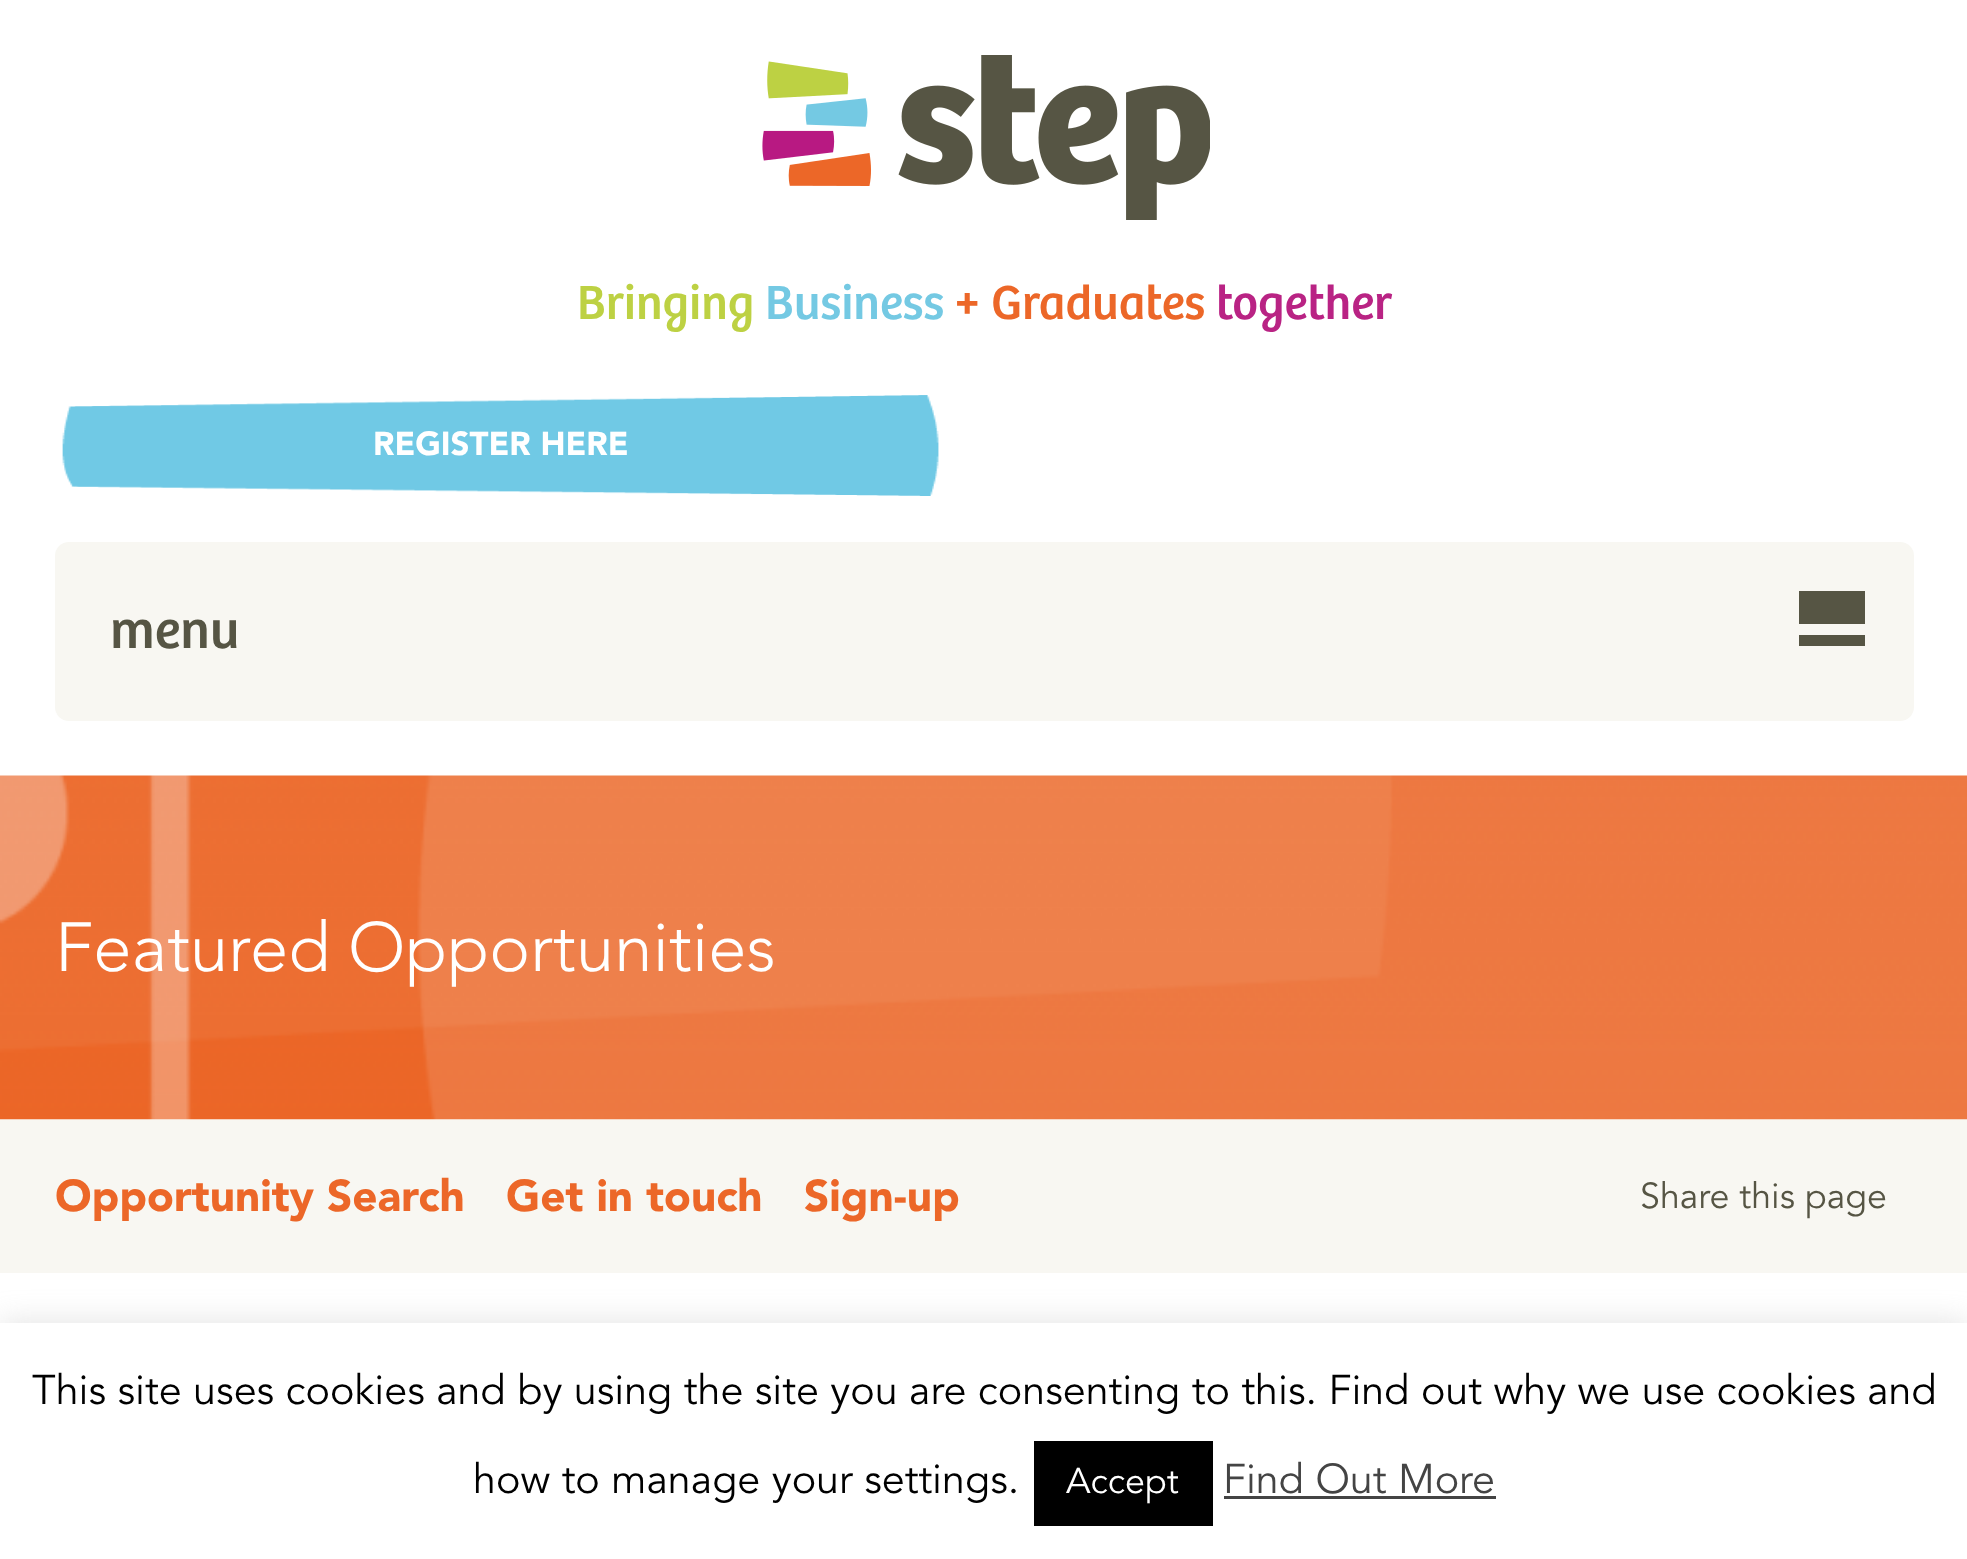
(async () => {
  const canvas = document.querySelector("canvas");
  canvas.width = 1967;
  canvas.height = 1559;
  const ctx = canvas.getContext("2d");
  ctx.miterLimit = 4;
  ctx.fontKerning = "normal";
  async function loadImage(src) {
    const img = new Image();
    img.src = src;
    await img.decode();
    return img;
  }

  ctx.fillStyle = "#ffffff";
  ctx.fillRect(0, 0, 1967, 1559);
  ctx.drawImage(await loadImage("img/1.png"), 762, 55, 448, 165);
  ctx.drawImage(await loadImage("img/2.png"), 62, 395, 877, 101);
  ctx.fillStyle = "#f8f7f2";
  ctx.beginPath();
  ctx.roundRect(55, 542, 1859, 179, 14);
  ctx.fill();
  for (const [x, y, w, h, color] of [
    [1799, 591, 66, 33, "#565544"],
    [1799, 635, 66, 11, "#565544"],
    [0, 1119, 1967, 154, "#f8f7f2"],
  ]) {
    ctx.fillStyle = color;
    ctx.fillRect(x, y, w, h);
  }
  ctx.drawImage(await loadImage("img/3.png"), 0, 775, 1967, 345);
  ctx.fillStyle = "rgba(172, 171, 171, 0.3)";
  ctx.filter = "blur(14px)";
  ctx.beginPath();
  ctx.rect(0, 1320, 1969, 237);
  ctx.fill();
  ctx.filter = "none";
  for (const [x, y, w, h, color] of [
    [0, 1323, 1967, 236, "#ffffff"],
    [1034, 1441, 179, 85, "#000000"],
    [1224, 1496, 272, 3, "#444444"],
  ]) {
    ctx.fillStyle = color;
    ctx.fillRect(x, y, w, h);
  }
  ctx.font = "49.5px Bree";
  ctx.fillStyle = "#bdd143";
  ctx.fillText("Bringing", 577, 319);
  ctx.fillStyle = "#74c9e3";
  ctx.fillText("Business", 765, 319);
  ctx.fillStyle = "#ec6728";
  ctx.fillText("+ Graduates", 954, 319);
  ctx.fillStyle = "#b92384";
  ctx.fillText("together", 1216, 319);
  ctx.font = "900 33px Avenir";
  ctx.fillStyle = "#ffffff";
  ctx.fillText("REGISTER HERE", 373, 455);
  ctx.font = "55px Bree";
  ctx.fillStyle = "#565544";
  ctx.fillText("menu", 110, 648);
  ctx.font = "300 68.75px Avenir";
  ctx.fillStyle = "#ffffff";
  ctx.fillText("Featured Opportunities", 55, 971);
  ctx.font = "900 44px Avenir";
  ctx.fillStyle = "#ec6728";
  for (const [text, x, y] of [
    ["Opportunity Search", 55, 1211],
    ["Get in touch", 506, 1211],
    ["Sign-up", 804, 1211],
  ]) {
    ctx.fillText(text, x, y);
  }
  ctx.font = "35.75px Avenir";
  ctx.fillStyle = "#565544";
  ctx.fillText("Share this page", 1640, 1208);
  ctx.font = "41.25px Avenir";
  ctx.fillStyle = "#000000";
  ctx.fillText("This site uses cookies and by using the site you are consenting to this. Find out why we use cookies and", 32, 1404);
  ctx.fillText("how to manage your settings.", 473, 1493);
  ctx.font = "35.75px Avenir";
  ctx.fillStyle = "#ffffff";
  ctx.fillText("Accept", 1066, 1493);
  ctx.font = "41.25px Avenir";
  ctx.fillStyle = "#444444";
  ctx.fillText("Find Out More", 1223, 1493);
})();
